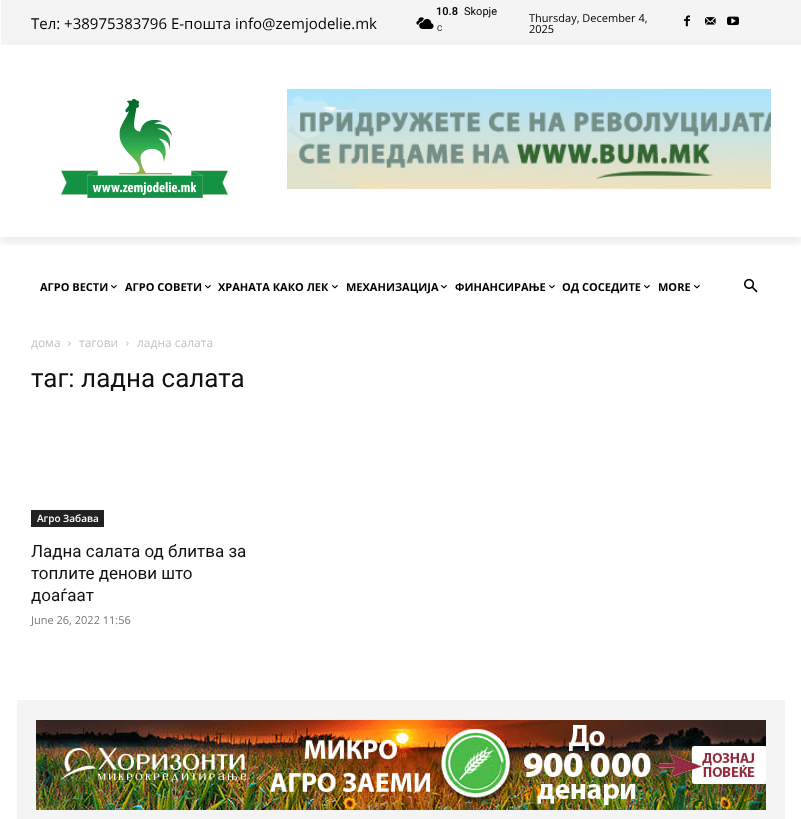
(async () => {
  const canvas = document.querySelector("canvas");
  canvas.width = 801;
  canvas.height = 819;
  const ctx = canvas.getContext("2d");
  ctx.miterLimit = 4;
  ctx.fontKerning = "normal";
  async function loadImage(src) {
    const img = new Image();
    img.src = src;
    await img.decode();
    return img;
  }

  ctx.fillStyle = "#ffffff";
  ctx.fillRect(0, 0, 801, 819);
  ctx.fillStyle = "#f4f4f4";
  ctx.fillRect(1, 0, 800, 45);
  ctx.drawImage(await loadImage("img/1.png"), 416, 17, 18, 12);
  ctx.drawImage(await loadImage("img/2.png"), 684, 15, 6, 12);
  ctx.drawImage(await loadImage("img/3.png"), 705, 17, 11, 8);
  ctx.drawImage(await loadImage("img/4.png"), 727, 16, 12, 10);
  ctx.drawImage(await loadImage("img/5.png"), 61, 99, 167, 99);
  ctx.drawImage(await loadImage("img/6.png"), 287, 89, 484, 100);
  ctx.save();
  ctx.beginPath();
  ctx.rect(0, 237, 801, 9);
  ctx.clip();
  ctx.fillStyle = "rgba(0, 0, 0, 0.08)";
  ctx.filter = "blur(4px)";
  ctx.beginPath();
  ctx.rect(1, 51, 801, 192);
  ctx.fill();
  ctx.filter = "none";
  ctx.restore();
  ctx.drawImage(await loadImage("img/7.png"), 111, 285, 6, 4);
  ctx.drawImage(await loadImage("img/7.png"), 205, 285, 6, 4);
  ctx.drawImage(await loadImage("img/7.png"), 332, 285, 6, 4);
  ctx.drawImage(await loadImage("img/7.png"), 441, 285, 6, 4);
  ctx.drawImage(await loadImage("img/7.png"), 549, 285, 6, 4);
  ctx.drawImage(await loadImage("img/7.png"), 644, 285, 6, 4);
  ctx.drawImage(await loadImage("img/7.png"), 694, 285, 6, 4);
  ctx.drawImage(await loadImage("img/8.png"), 744, 278, 14, 15);
  ctx.drawImage(await loadImage("img/9.png"), 68, 341, 3, 5);
  ctx.drawImage(await loadImage("img/9.png"), 126, 341, 3, 5);
  ctx.fillStyle = "#222222";
  ctx.fillRect(31, 510, 73, 17);
  ctx.fillStyle = "#f4f4f4";
  ctx.fillRect(17, 700, 768, 119);
  ctx.drawImage(await loadImage("img/10.png"), 36, 720, 730, 90);
  ctx.font = "15px Open Sans";
  ctx.fillStyle = "#000000";
  ctx.fillText("Тел: +38975383796 Е-пошта info@zemjodelie.mk", 31, 29);
  ctx.font = "600 11px Roboto";
  ctx.fillText("10.8", 436, 15);
  ctx.font = "8px Roboto";
  ctx.fillText("C", 437, 31);
  ctx.font = "11px Roboto";
  ctx.fillText("Skopje", 464, 15);
  ctx.font = "11px Open Sans";
  ctx.fillText("Thursday, December 4,", 529, 22);
  ctx.fillText("2025", 529, 33);
  ctx.font = "bold 11px Open Sans";
  for (const [text, x, y] of [
    ["АГРО ВЕСТИ", 40, 291],
    ["АГРО СОВЕТИ", 125, 291],
    ["ХРАНАТА КАКО ЛЕК", 218, 291],
    ["МЕХАНИЗАЦИЈА", 346, 291],
    ["ФИНАНСИРАЊЕ", 455, 291],
    ["ОД СОСЕДИТЕ", 562, 291],
    ["MORE", 658, 291],
  ]) {
    ctx.fillText(text, x, y);
  }
  ctx.font = "12px Open Sans";
  ctx.fillStyle = "#c3c3c3";
  for (const [text, x, y] of [
    ["дома", 31, 347],
    ["тагови", 79, 347],
    ["ладна салата", 137, 347],
  ]) {
    ctx.fillText(text, x, y);
  }
  ctx.font = "26px Roboto";
  ctx.fillStyle = "#111111";
  ctx.fillText("таг: ладна салата", 31, 387);
  ctx.font = "600 10px Open Sans";
  ctx.fillStyle = "#ffffff";
  ctx.fillText("Агро Забава", 37, 522);
  ctx.font = "17px Roboto";
  ctx.fillStyle = "#111111";
  for (const [text, x, y] of [
    ["Ладна салата од блитва за", 31, 557],
    ["топлите денови што", 31, 579],
    ["доаѓаат", 31, 601],
  ]) {
    ctx.fillText(text, x, y);
  }
  ctx.font = "11px Open Sans";
  ctx.fillStyle = "#767676";
  ctx.fillText("June 26, 2022 11:56", 31, 624);
})();
